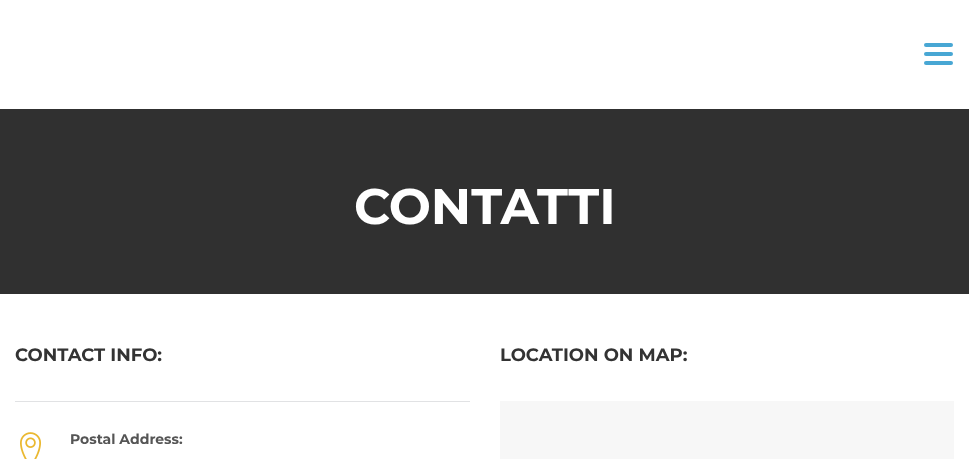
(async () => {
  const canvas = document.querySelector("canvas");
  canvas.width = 969;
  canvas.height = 459;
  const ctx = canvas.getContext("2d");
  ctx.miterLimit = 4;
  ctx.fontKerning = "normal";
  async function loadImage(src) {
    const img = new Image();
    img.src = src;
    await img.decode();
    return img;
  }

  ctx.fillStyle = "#ffffff";
  ctx.fillRect(0, 0, 969, 459);
  ctx.fillStyle = "#48a7d4";
  ctx.beginPath();
  ctx.roundRect(924, 43, 29, 4, 2);
  ctx.fill();
  ctx.beginPath();
  ctx.roundRect(924, 52, 29, 4, 2);
  ctx.fill();
  ctx.beginPath();
  ctx.roundRect(924, 61, 29, 4, 2);
  ctx.fill();
  ctx.fillStyle = "#303030";
  ctx.fillRect(0, 109, 969, 185);
  ctx.fillStyle = "#e1e2e4";
  ctx.fillRect(15, 401, 455, 1);
  ctx.drawImage(await loadImage("img/1.png"), 20, 432, 21, 27);
  ctx.fillStyle = "#f7f7f7";
  ctx.fillRect(500, 401, 454, 58);
  ctx.font = "bold 50px Montserrat";
  ctx.fillStyle = "#ffffff";
  ctx.fillText("CONTATTI", 354, 224);
  ctx.font = "bold 18px Montserrat";
  ctx.fillStyle = "#333333";
  ctx.fillText("CONTACT INFO:", 15, 361);
  ctx.font = "bold 14px Montserrat";
  ctx.fillStyle = "#555555";
  ctx.fillText("Postal Address:", 70, 444);
  ctx.font = "bold 18px Montserrat";
  ctx.fillStyle = "#333333";
  ctx.fillText("LOCATION ON MAP:", 500, 361);
})();
